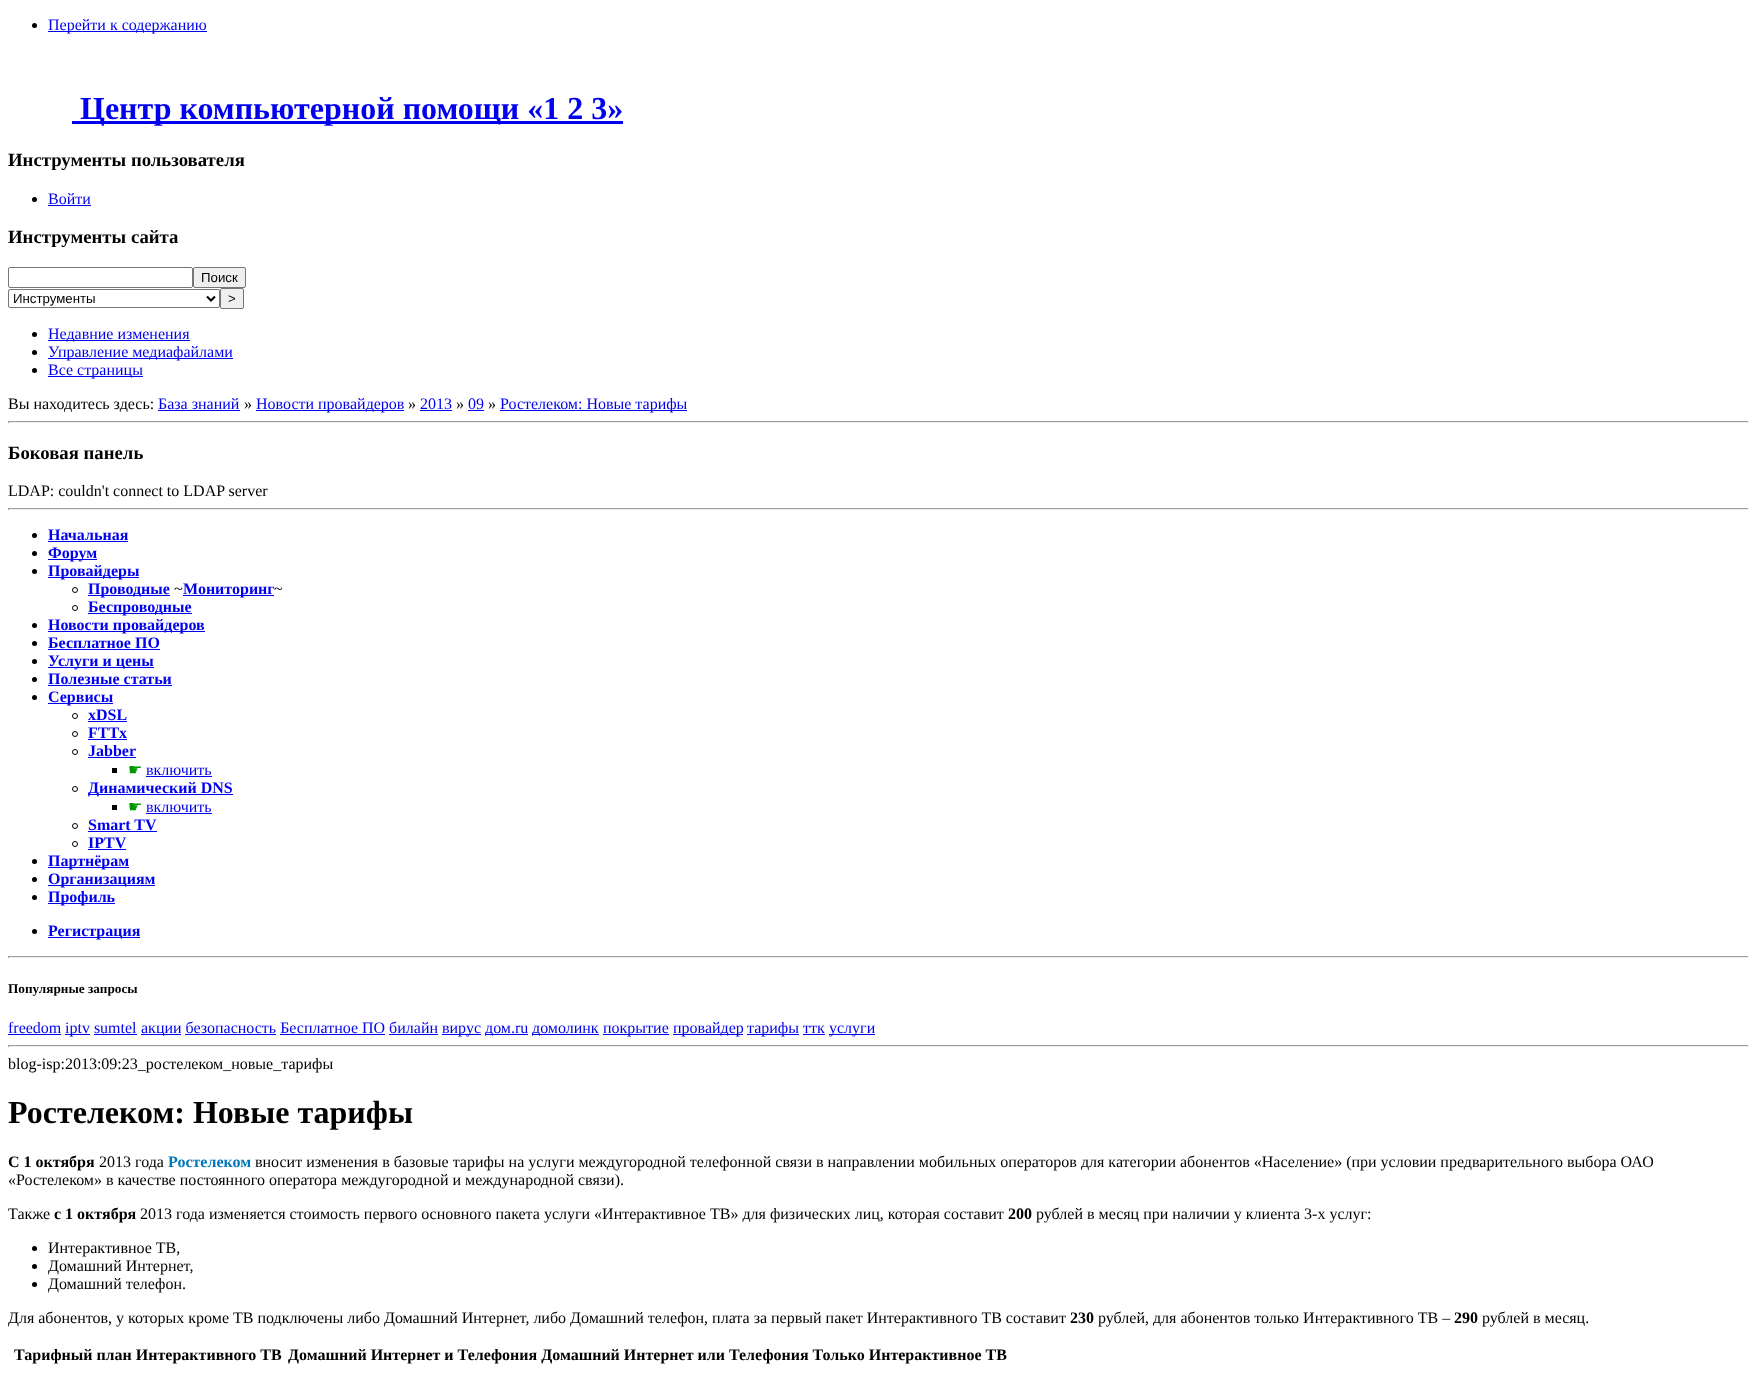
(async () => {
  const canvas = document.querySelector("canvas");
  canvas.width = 1757;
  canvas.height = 1377;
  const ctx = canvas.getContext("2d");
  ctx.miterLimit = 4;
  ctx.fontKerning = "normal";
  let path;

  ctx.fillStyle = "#ffffff";
  ctx.fillRect(0, 0, 1757, 1377);
  ctx.fillStyle = "#000000";
  ctx.beginPath();
  ctx.arc(34.5, 25.5, 2.5, 0, Math.PI * 2);
  ctx.fill();
  ctx.fillStyle = "#0000ee";
  ctx.fillRect(48, 31, 159, 1);
  ctx.fillRect(72, 121, 551, 3);
  ctx.fillStyle = "#000000";
  ctx.beginPath();
  ctx.arc(34.5, 199.5, 2.5, 0, Math.PI * 2);
  ctx.fill();
  ctx.fillStyle = "#0000ee";
  ctx.fillRect(48, 205, 43, 1);
  ctx.beginPath();
  ctx.roundRect(8.5, 267.5, 184, 20, 1.5);
  ctx.strokeStyle = "#767676";
  ctx.stroke();
  ctx.fillStyle = "#efefef";
  ctx.beginPath();
  ctx.roundRect(193.5, 267.5, 52, 20, 1.5);
  ctx.fill();
  ctx.stroke();
  ctx.beginPath();
  ctx.roundRect(8.5, 289.5, 211, 18, 1.5);
  ctx.stroke();
  path = new Path2D("M207 296.5L211 300.5L215 296.5");
  ctx.strokeStyle = "#000000";
  ctx.lineWidth = 2;
  ctx.stroke(path);
  ctx.beginPath();
  ctx.roundRect(220.5, 288.5, 23, 20, 1.5);
  ctx.fill();
  ctx.strokeStyle = "#767676";
  ctx.lineWidth = 1;
  ctx.stroke();
  ctx.fillStyle = "#000000";
  ctx.beginPath();
  ctx.arc(34.5, 334.5, 2.5, 0, Math.PI * 2);
  ctx.fill();
  ctx.fillStyle = "#0000ee";
  ctx.fillRect(48, 340, 142, 1);
  ctx.fillStyle = "#000000";
  ctx.beginPath();
  ctx.arc(34.5, 352.5, 2.5, 0, Math.PI * 2);
  ctx.fill();
  ctx.fillStyle = "#0000ee";
  ctx.fillRect(48, 358, 185, 1);
  ctx.fillStyle = "#000000";
  ctx.beginPath();
  ctx.arc(34.5, 370.5, 2.5, 0, Math.PI * 2);
  ctx.fill();
  for (const [x, y, w, h, color] of [
    [48, 376, 95, 1, "#0000ee"],
    [158, 410, 82, 1, "#0000ee"],
    [256, 410, 148, 1, "#0000ee"],
    [420, 410, 32, 1, "#0000ee"],
    [468, 410, 16, 1, "#0000ee"],
    [500, 410, 187, 1, "#0000ee"],
    [8, 421, 1741, 1, "#9f9f9f"],
    [1748, 421, 1, 2, "#eeeeee"],
    [8, 422, 1741, 1, "#eeeeee"],
    [8, 421, 1, 2, "#9f9f9f"],
    [8, 508, 1741, 1, "#9f9f9f"],
    [1748, 508, 1, 2, "#eeeeee"],
    [8, 509, 1741, 1, "#eeeeee"],
    [8, 508, 1, 2, "#9f9f9f"],
  ]) {
    ctx.fillStyle = color;
    ctx.fillRect(x, y, w, h);
  }
  ctx.fillStyle = "#000000";
  ctx.beginPath();
  ctx.arc(34.5, 535.5, 2.5, 0, Math.PI * 2);
  ctx.fill();
  ctx.fillStyle = "#0000ee";
  ctx.fillRect(48, 541, 80, 1);
  ctx.fillStyle = "#000000";
  ctx.beginPath();
  ctx.arc(34.5, 553.5, 2.5, 0, Math.PI * 2);
  ctx.fill();
  ctx.fillStyle = "#0000ee";
  ctx.fillRect(48, 559, 49, 1);
  ctx.fillStyle = "#000000";
  ctx.beginPath();
  ctx.arc(34.5, 571.5, 2.5, 0, Math.PI * 2);
  ctx.fill();
  ctx.fillStyle = "#0000ee";
  ctx.fillRect(48, 577, 91, 1);
  ctx.beginPath();
  ctx.arc(75, 590, 2.5, 0, Math.PI * 2);
  ctx.strokeStyle = "#000000";
  ctx.stroke();
  ctx.fillRect(88, 595, 82, 1);
  ctx.fillRect(183, 595, 91, 1);
  ctx.beginPath();
  ctx.arc(75, 608, 2.5, 0, Math.PI * 2);
  ctx.stroke();
  ctx.fillRect(88, 613, 104, 1);
  ctx.fillStyle = "#000000";
  ctx.beginPath();
  ctx.arc(34.5, 625.5, 2.5, 0, Math.PI * 2);
  ctx.fill();
  ctx.fillStyle = "#0000ee";
  ctx.fillRect(48, 631, 157, 1);
  ctx.fillStyle = "#000000";
  ctx.beginPath();
  ctx.arc(34.5, 643.5, 2.5, 0, Math.PI * 2);
  ctx.fill();
  ctx.fillStyle = "#0000ee";
  ctx.fillRect(48, 649, 112, 1);
  ctx.fillStyle = "#000000";
  ctx.beginPath();
  ctx.arc(34.5, 661.5, 2.5, 0, Math.PI * 2);
  ctx.fill();
  ctx.fillStyle = "#0000ee";
  ctx.fillRect(48, 667, 106, 1);
  ctx.fillStyle = "#000000";
  ctx.beginPath();
  ctx.arc(34.5, 679.5, 2.5, 0, Math.PI * 2);
  ctx.fill();
  ctx.fillStyle = "#0000ee";
  ctx.fillRect(48, 685, 124, 1);
  ctx.fillStyle = "#000000";
  ctx.beginPath();
  ctx.arc(34.5, 697.5, 2.5, 0, Math.PI * 2);
  ctx.fill();
  ctx.fillStyle = "#0000ee";
  ctx.fillRect(48, 703, 65, 1);
  ctx.beginPath();
  ctx.arc(75, 716, 2.5, 0, Math.PI * 2);
  ctx.stroke();
  ctx.fillRect(88, 721, 39, 1);
  ctx.beginPath();
  ctx.arc(75, 734, 2.5, 0, Math.PI * 2);
  ctx.stroke();
  ctx.fillRect(88, 739, 39, 1);
  ctx.beginPath();
  ctx.arc(75, 752, 2.5, 0, Math.PI * 2);
  ctx.stroke();
  for (const [x, y, w, h, color] of [
    [88, 757, 48, 1, "#0000ee"],
    [112, 768, 5, 5, "#000000"],
    [146, 776, 66, 1, "#0000ee"],
  ]) {
    ctx.fillStyle = color;
    ctx.fillRect(x, y, w, h);
  }
  ctx.beginPath();
  ctx.arc(75, 789, 2.5, 0, Math.PI * 2);
  ctx.stroke();
  for (const [x, y, w, h, color] of [
    [88, 794, 145, 1, "#0000ee"],
    [112, 805, 5, 5, "#000000"],
    [146, 813, 66, 1, "#0000ee"],
  ]) {
    ctx.fillStyle = color;
    ctx.fillRect(x, y, w, h);
  }
  ctx.beginPath();
  ctx.arc(75, 826, 2.5, 0, Math.PI * 2);
  ctx.stroke();
  ctx.fillRect(88, 831, 69, 1);
  ctx.beginPath();
  ctx.arc(75, 844, 2.5, 0, Math.PI * 2);
  ctx.stroke();
  ctx.fillRect(88, 849, 38, 1);
  ctx.fillStyle = "#000000";
  ctx.beginPath();
  ctx.arc(34.5, 861.5, 2.5, 0, Math.PI * 2);
  ctx.fill();
  ctx.fillStyle = "#0000ee";
  ctx.fillRect(48, 867, 81, 1);
  ctx.fillStyle = "#000000";
  ctx.beginPath();
  ctx.arc(34.5, 879.5, 2.5, 0, Math.PI * 2);
  ctx.fill();
  ctx.fillStyle = "#0000ee";
  ctx.fillRect(48, 885, 107, 1);
  ctx.fillStyle = "#000000";
  ctx.beginPath();
  ctx.arc(34.5, 897.5, 2.5, 0, Math.PI * 2);
  ctx.fill();
  ctx.fillStyle = "#0000ee";
  ctx.fillRect(48, 903, 67, 1);
  ctx.fillStyle = "#000000";
  ctx.beginPath();
  ctx.arc(34.5, 931.5, 2.5, 0, Math.PI * 2);
  ctx.fill();
  for (const [x, y, w, h, color] of [
    [48, 937, 92, 1, "#0000ee"],
    [8, 956, 1741, 1, "#9f9f9f"],
    [1748, 956, 1, 2, "#eeeeee"],
    [8, 957, 1741, 1, "#eeeeee"],
    [8, 956, 1, 2, "#9f9f9f"],
    [8, 1034, 53, 1, "#0000ee"],
    [65, 1034, 25, 1, "#0000ee"],
    [141, 1034, 40, 1, "#0000ee"],
    [442, 1034, 39, 1, "#0000ee"],
    [485, 1034, 43, 1, "#0000ee"],
    [532, 1034, 67, 1, "#0000ee"],
    [603, 1034, 66, 1, "#0000ee"],
    [673, 1034, 70, 1, "#0000ee"],
    [747, 1034, 52, 1, "#0000ee"],
    [829, 1034, 46, 1, "#0000ee"],
    [94, 1034, 43, 1, "#0000ee"],
    [185, 1034, 91, 1, "#0000ee"],
    [280, 1034, 105, 1, "#0000ee"],
    [389, 1034, 49, 1, "#0000ee"],
    [803, 1034, 22, 1, "#0000ee"],
    [8, 1045, 1741, 1, "#9f9f9f"],
    [1748, 1045, 1, 2, "#eeeeee"],
    [8, 1046, 1741, 1, "#eeeeee"],
    [8, 1045, 1, 2, "#9f9f9f"],
  ]) {
    ctx.fillStyle = color;
    ctx.fillRect(x, y, w, h);
  }
  ctx.fillStyle = "#000000";
  ctx.beginPath();
  ctx.arc(34.5, 1248.5, 2.5, 0, Math.PI * 2);
  ctx.fill();
  ctx.beginPath();
  ctx.arc(34.5, 1266.5, 2.5, 0, Math.PI * 2);
  ctx.fill();
  ctx.beginPath();
  ctx.arc(34.5, 1284.5, 2.5, 0, Math.PI * 2);
  ctx.fill();
  ctx.font = "16px Liberation Serif";
  ctx.fillStyle = "#0000ee";
  ctx.fillText("Перейти к содержанию", 48, 30);
  ctx.font = "bold 32px Liberation Serif";
  ctx.fillText("Центр компьютерной помощи «1 2 3»", 80, 119);
  ctx.font = "bold 18.75px Liberation Serif";
  ctx.fillStyle = "#000000";
  ctx.fillText("Инструменты пользователя", 8, 166);
  ctx.font = "16px Liberation Serif";
  ctx.fillStyle = "#0000ee";
  ctx.fillText("Войти", 48, 204);
  ctx.font = "bold 18.75px Liberation Serif";
  ctx.fillStyle = "#000000";
  ctx.fillText("Инструменты сайта", 8, 243);
  ctx.font = "13.25px Liberation Sans";
  for (const [text, x, y] of [
    ["Поиск", 201, 282],
    ["Инструменты", 13, 303],
    [">", 228, 303],
  ]) {
    ctx.fillText(text, x, y);
  }
  ctx.font = "16px Liberation Serif";
  ctx.fillStyle = "#0000ee";
  for (const [text, x, y] of [
    ["Недавние изменения", 48, 339],
    ["Управление медиафайлами", 48, 357],
    ["Все страницы", 48, 375],
  ]) {
    ctx.fillText(text, x, y);
  }
  ctx.fillStyle = "#000000";
  ctx.fillText("Вы находитесь здесь:", 8, 409);
  ctx.fillStyle = "#0000ee";
  ctx.fillText("База знаний", 158, 409);
  ctx.fillStyle = "#000000";
  ctx.fillText("»", 244, 409);
  ctx.fillStyle = "#0000ee";
  ctx.fillText("Новости провайдеров", 256, 409);
  ctx.fillStyle = "#000000";
  ctx.fillText("»", 408, 409);
  ctx.fillStyle = "#0000ee";
  ctx.fillText("2013", 420, 409);
  ctx.fillStyle = "#000000";
  ctx.fillText("»", 456, 409);
  ctx.fillStyle = "#0000ee";
  ctx.fillText("09", 468, 409);
  ctx.fillStyle = "#000000";
  ctx.fillText("»", 488, 409);
  ctx.fillStyle = "#0000ee";
  ctx.fillText("Ростелеком: Новые тарифы", 500, 409);
  ctx.font = "bold 18.75px Liberation Serif";
  ctx.fillStyle = "#000000";
  ctx.fillText("Боковая панель", 8, 459);
  ctx.font = "16px Liberation Serif";
  ctx.fillText("LDAP: couldn't connect to LDAP server", 8, 496);
  ctx.font = "bold 16px Liberation Serif";
  ctx.fillStyle = "#0000ee";
  for (const [text, x, y] of [
    ["Начальная", 48, 540],
    ["Форум", 48, 558],
    ["Провайдеры", 48, 576],
    ["Проводные", 88, 594],
  ]) {
    ctx.fillText(text, x, y);
  }
  ctx.font = "16px Liberation Serif";
  ctx.fillStyle = "#000000";
  ctx.fillText("~", 174, 594);
  ctx.font = "bold 16px Liberation Serif";
  ctx.fillStyle = "#0000ee";
  ctx.fillText("Мониторинг", 183, 594);
  ctx.font = "16px Liberation Serif";
  ctx.fillStyle = "#000000";
  ctx.fillText("~", 274, 594);
  ctx.font = "bold 16px Liberation Serif";
  ctx.fillStyle = "#0000ee";
  for (const [text, x, y] of [
    ["Беспроводные", 88, 612],
    ["Новости провайдеров", 48, 630],
    ["Бесплатное ПО", 48, 648],
    ["Услуги и цены", 48, 666],
    ["Полезные статьи", 48, 684],
    ["Сервисы", 48, 702],
    ["xDSL", 88, 720],
    ["FTTx", 88, 738],
    ["Jabber", 88, 756],
  ]) {
    ctx.fillText(text, x, y);
  }
  ctx.font = "16px DejaVu Sans";
  ctx.fillStyle = "#009900";
  ctx.fillText("☛", 128, 775);
  ctx.font = "16px Liberation Serif";
  ctx.fillStyle = "#0000ee";
  ctx.fillText("включить", 146, 775);
  ctx.font = "bold 16px Liberation Serif";
  ctx.fillText("Динамический DNS", 88, 793);
  ctx.font = "16px DejaVu Sans";
  ctx.fillStyle = "#009900";
  ctx.fillText("☛", 128, 812);
  ctx.font = "16px Liberation Serif";
  ctx.fillStyle = "#0000ee";
  ctx.fillText("включить", 146, 812);
  ctx.font = "bold 16px Liberation Serif";
  for (const [text, x, y] of [
    ["Smart TV", 88, 830],
    ["IPTV", 88, 848],
    ["Партнёрам", 48, 866],
    ["Организациям", 48, 884],
    ["Профиль", 48, 902],
    ["Регистрация", 48, 936],
  ]) {
    ctx.fillText(text, x, y);
  }
  ctx.font = "bold 13.25px Liberation Serif";
  ctx.fillStyle = "#000000";
  ctx.fillText("Популярные запросы", 8, 993);
  ctx.font = "16px Liberation Serif";
  ctx.fillStyle = "#0000ee";
  for (const [text, x, y] of [
    ["freedom", 8, 1033],
    ["iptv sumtel", 65, 1033],
    ["акции безопасность Бесплатное ПО билайн", 141, 1033],
    ["вирус", 442, 1033],
    ["дом.ru", 485, 1033],
    ["домолинк", 532, 1033],
    ["покрытие", 603, 1033],
    ["провайдер", 673, 1033],
    ["тарифы ттк", 747, 1033],
    ["услуги", 829, 1033],
  ]) {
    ctx.fillText(text, x, y);
  }
  ctx.fillStyle = "#000000";
  ctx.fillText("blog-isp:2013:09:23_ростелеком_новые_тарифы", 8, 1069);
  ctx.font = "bold 32px Liberation Serif";
  ctx.fillText("Ростелеком: Новые тарифы", 8, 1123);
  ctx.font = "bold 16px Liberation Serif";
  ctx.fillText("С 1 октября", 8, 1167);
  ctx.font = "16px Liberation Serif";
  ctx.fillText("2013 года", 99, 1167);
  ctx.font = "bold 16px Liberation Serif";
  ctx.fillStyle = "#0077b8";
  ctx.fillText("Ростелеком", 168, 1167);
  ctx.font = "16px Liberation Serif";
  ctx.fillStyle = "#000000";
  for (const [text, x, y] of [
    ["вносит изменения в базовые тарифы на услуги междугородной телефонной связи в направлении мобильных операторов для категории абонентов «Население» (при условии предварительного выбора ОАО", 255, 1167],
    ["«Ростелеком» в качестве постоянного оператора междугородной и международной связи).", 8, 1185],
    ["Также", 8, 1219],
  ]) {
    ctx.fillText(text, x, y);
  }
  ctx.font = "bold 16px Liberation Serif";
  ctx.fillText("с 1 октября", 54, 1219);
  ctx.font = "16px Liberation Serif";
  ctx.fillText("2013 года изменяется стоимость первого основного пакета услуги «Интерактивное ТВ» для физических лиц, которая составит", 140, 1219);
  ctx.font = "bold 16px Liberation Serif";
  ctx.fillText("200", 1008, 1219);
  ctx.font = "16px Liberation Serif";
  for (const [text, x, y] of [
    ["рублей в месяц при наличии у клиента 3-х услуг:", 1036, 1219],
    ["Интерактивное ТВ,", 48, 1253],
    ["Домашний Интернет,", 48, 1271],
    ["Домашний телефон.", 48, 1289],
    ["Для абонентов, у которых кроме ТВ подключены либо Домашний Интернет, либо Домашний телефон, плата за первый пакет Интерактивного ТВ составит", 8, 1323],
  ]) {
    ctx.fillText(text, x, y);
  }
  ctx.font = "bold 16px Liberation Serif";
  ctx.fillText("230", 1070, 1323);
  ctx.font = "16px Liberation Serif";
  ctx.fillText("рублей, для абонентов только Интерактивного ТВ –", 1098, 1323);
  ctx.font = "bold 16px Liberation Serif";
  ctx.fillText("290", 1454, 1323);
  ctx.font = "16px Liberation Serif";
  ctx.fillText("рублей в месяц.", 1482, 1323);
  ctx.font = "bold 16px Liberation Serif";
  ctx.fillText("Тарифный план Интерактивного ТВ", 14, 1360);
  ctx.fillText("Домашний Интернет и Телефония Домашний Интернет или Телефония Только Интерактивное ТВ", 288, 1360);
})();
